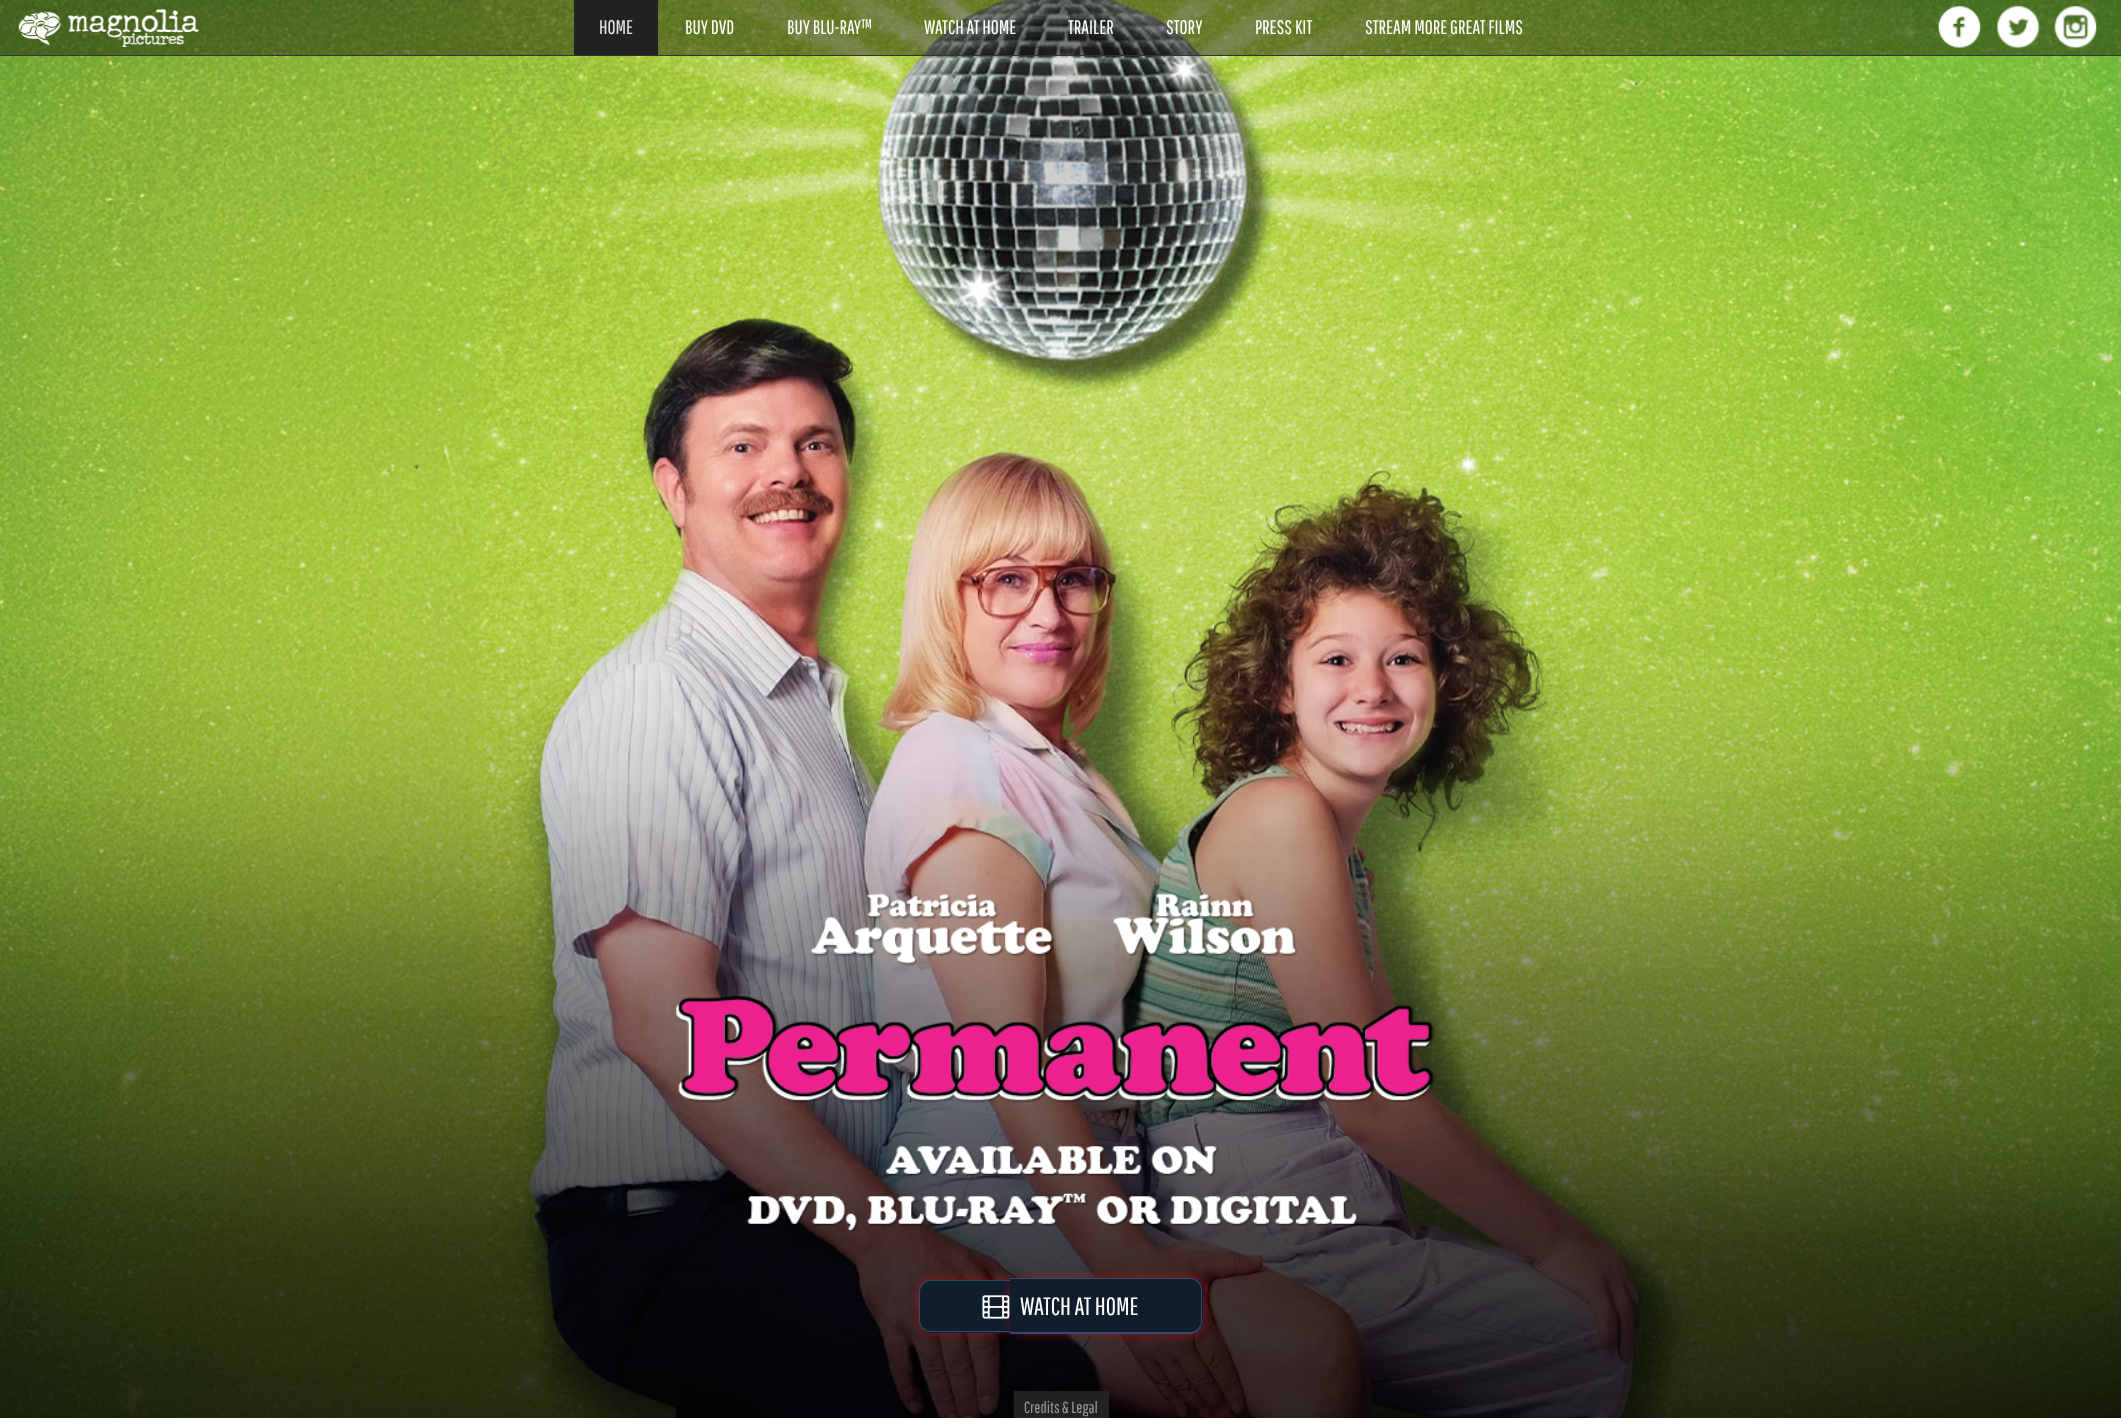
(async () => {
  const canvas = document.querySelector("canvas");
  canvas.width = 2121;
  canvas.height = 1418;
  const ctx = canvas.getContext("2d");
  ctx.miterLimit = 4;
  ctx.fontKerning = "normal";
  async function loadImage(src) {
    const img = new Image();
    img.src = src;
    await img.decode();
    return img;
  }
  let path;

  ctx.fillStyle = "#ffffff";
  ctx.fillRect(0, 0, 2121, 1418);
  ctx.drawImage(await loadImage("img/5.png"), 0, 0, 2121, 1418);
  ctx.fillStyle = "rgba(0, 0, 0, 0.4)";
  ctx.fillRect(0, 0, 2121, 55);
  ctx.fillStyle = "#333333";
  ctx.fillRect(0, 55, 2121, 1);
  ctx.drawImage(await loadImage("img/1.png"), 18, 9, 181, 38);
  ctx.fillStyle = "#222222";
  ctx.fillRect(574, 0, 84, 55);
  ctx.drawImage(await loadImage("img/2.png"), 1938, 6, 43, 42);
  ctx.drawImage(await loadImage("img/3.png"), 1996, 6, 44, 43);
  ctx.drawImage(await loadImage("img/4.png"), 2054, 6, 43, 43);
  ctx.drawImage(await loadImage("img/6.png"), 676, 893, 759, 339);
  ctx.fillStyle = "rgba(201, 10, 16, 0.6)";
  ctx.filter = "blur(5px)";
  ctx.beginPath();
  ctx.roundRect(919, 1280, 91, 53, 13);
  ctx.fill();
  ctx.filter = "none";
  ctx.fillStyle = "#101d2b";
  ctx.beginPath();
  ctx.roundRect(919, 1280, 91, 53, [13, 0, 0, 13]);
  ctx.fill();
  ctx.fillStyle = "#314c70";
  path = new Path2D("M931 1280H1010V1332H931C924 1332 919 1327 919 1320V1292C919 1286 924 1280 931 1280ZM931 1281H1010V1331H931C925 1331 920 1326 920 1320V1292C920 1286 925 1281 931 1281Z");
  ctx.fill(path, "evenodd");
  ctx.fillStyle = "rgba(201, 10, 16, 0.6)";
  ctx.filter = "blur(5px)";
  ctx.beginPath();
  ctx.roundRect(1010, 1278, 193, 56, 13);
  ctx.fill();
  ctx.filter = "none";
  ctx.fillStyle = "#101d2b";
  ctx.beginPath();
  ctx.roundRect(1010, 1278, 193, 56, [0, 13, 13, 0]);
  ctx.fill();
  ctx.fillStyle = "#314c70";
  path = new Path2D("M1010 1278H1190C1197 1278 1202 1283 1202 1290V1321C1202 1328 1197 1334 1190 1334H1010ZM1010 1279H1190C1196 1279 1201 1284 1201 1290V1321C1201 1327 1196 1332 1190 1332H1010Z");
  ctx.fill(path, "evenodd");
  ctx.drawImage(await loadImage("img/7.png"), 982, 1295, 28, 24);
  ctx.fillStyle = "#222222";
  ctx.fillRect(1014, 1391, 95, 27);
  ctx.font = "19.5px Pathway Gothic One";
  ctx.fillStyle = "#e6e6e6";
  ctx.fillText("HOME", 599, 34);
  ctx.fillStyle = "#ffffff";
  for (const [text, x, y] of [
    ["BUY DVD", 685, 34],
    ["BUY BLU-RAY™", 787, 34],
    ["WATCH AT HOME", 924, 34],
    ["TRAILER", 1068, 34],
    ["STORY", 1166, 34],
    ["PRESS KIT", 1255, 34],
    ["STREAM MORE GREAT FILMS", 1365, 34],
  ]) {
    ctx.fillText(text, x, y);
  }
  ctx.font = "25px Pathway Gothic One";
  ctx.fillText("WATCH AT HOME", 1020, 1315);
  ctx.font = "16.25px Pathway Gothic One";
  ctx.fillStyle = "#999999";
  ctx.fillText("Credits & Legal", 1024, 1413);
})();
